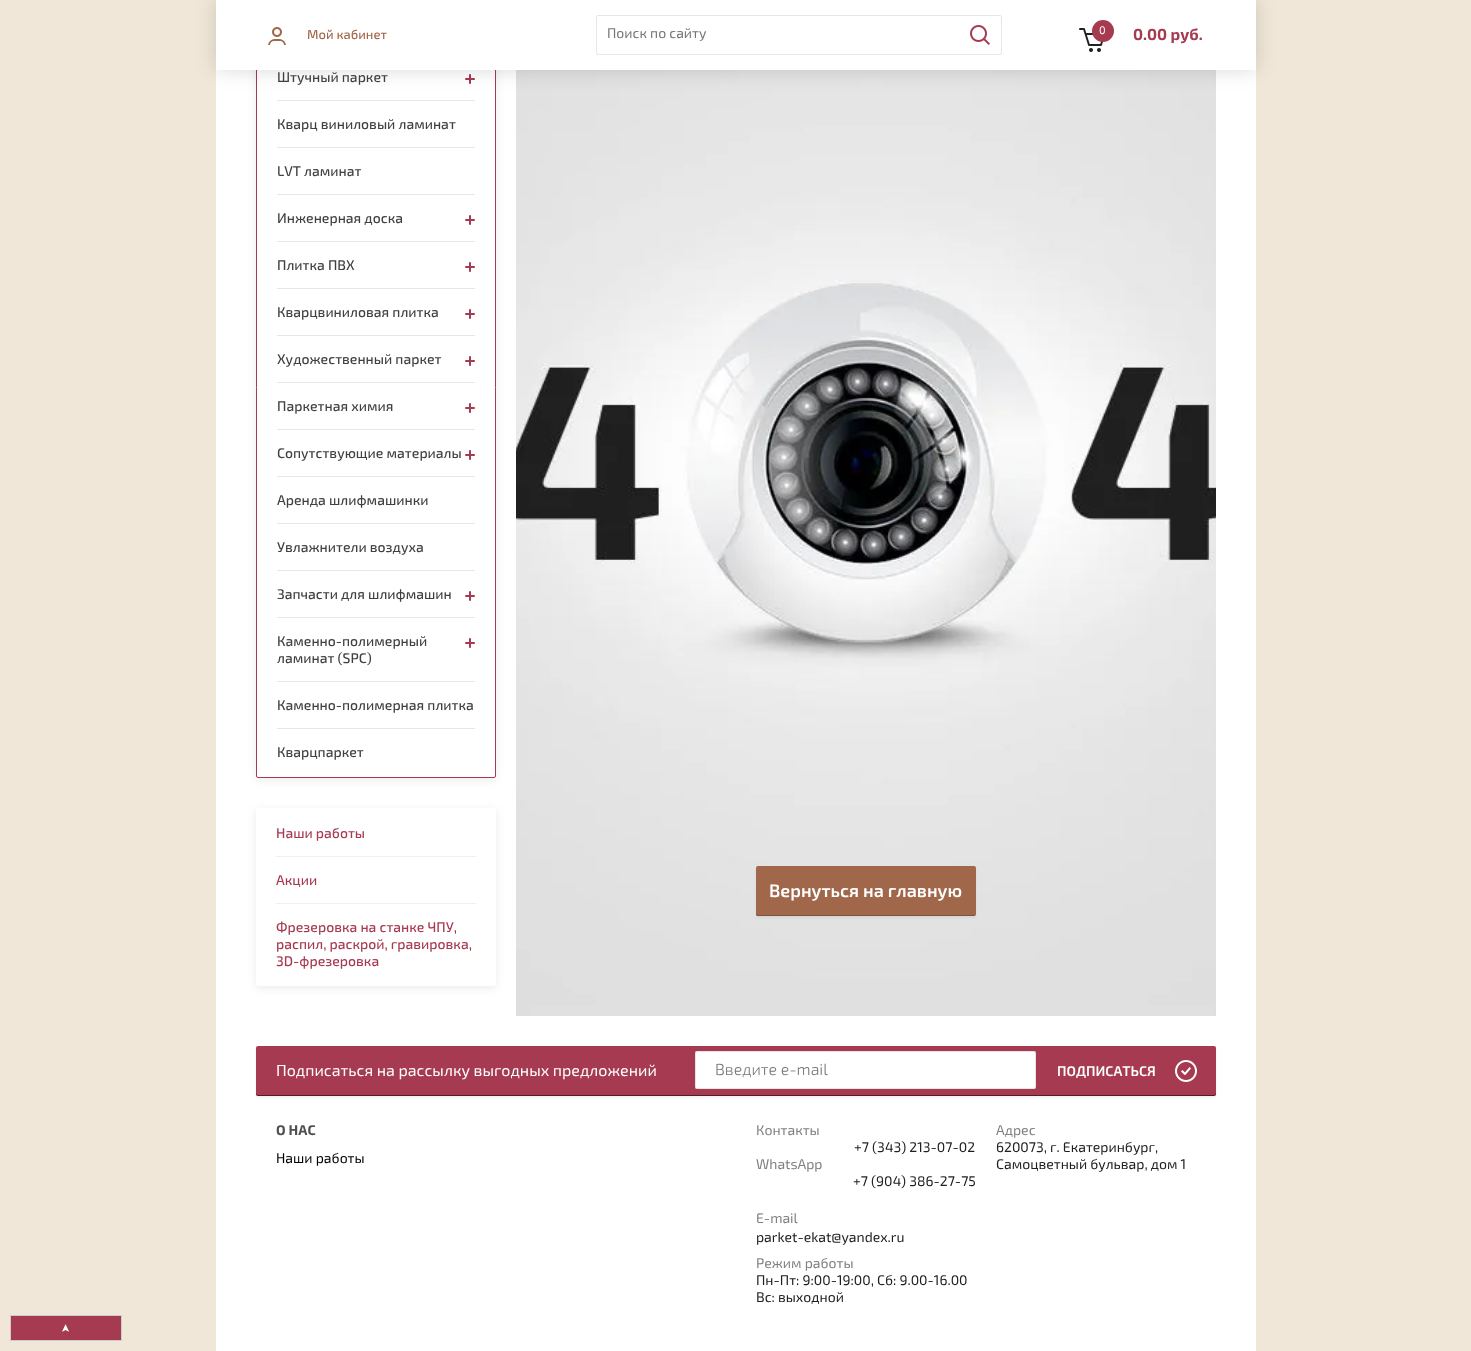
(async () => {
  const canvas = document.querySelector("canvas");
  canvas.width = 1471;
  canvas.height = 1351;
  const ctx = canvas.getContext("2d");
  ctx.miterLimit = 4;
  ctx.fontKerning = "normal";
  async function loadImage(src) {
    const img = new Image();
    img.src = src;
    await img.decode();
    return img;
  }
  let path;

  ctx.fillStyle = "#f0e7d8";
  ctx.fillRect(0, 0, 1471, 1351);
  ctx.fillStyle = "#ffffff";
  ctx.fillRect(216, 70, 1040, 1281);
  ctx.fillStyle = "rgba(0, 0, 0, 0.08)";
  ctx.filter = "blur(4px)";
  ctx.beginPath();
  ctx.roundRect(256, -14, 240, 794, 2);
  ctx.fill();
  ctx.filter = "none";
  ctx.fillStyle = "#ffffff";
  ctx.beginPath();
  ctx.roundRect(256.5, -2.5, 239, 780, 1.5);
  ctx.fill();
  ctx.strokeStyle = "#a63a50";
  ctx.stroke();
  ctx.fillStyle = "#e6e6e6";
  ctx.fillRect(277, 100, 198, 1);
  ctx.drawImage(await loadImage("img/4.png"), 465, 74, 10, 10);
  ctx.drawImage(await loadImage("img/5.png"), 516, 70, 700, 946);
  ctx.fillStyle = "rgba(0, 0, 0, 0.15)";
  ctx.filter = "blur(10px)";
  ctx.beginPath();
  ctx.rect(216, 0, 1040, 70);
  ctx.fill();
  ctx.filter = "none";
  ctx.fillStyle = "#ffffff";
  ctx.fillRect(216, 0, 1040, 70);
  ctx.drawImage(await loadImage("img/1.png"), 268, 27, 18, 18);
  ctx.beginPath();
  ctx.roundRect(596.5, 15.5, 405, 39, 1.5);
  ctx.strokeStyle = "#e6e6e6";
  ctx.stroke();
  ctx.drawImage(await loadImage("img/2.png"), 970, 25, 20, 20);
  ctx.drawImage(await loadImage("img/3.png"), 1079, 28, 25, 24);
  ctx.fillStyle = "#a63a50";
  ctx.beginPath();
  ctx.arc(1103, 31, 11, 0, Math.PI * 2);
  ctx.fill();
  for (const [x, y, w, h, color] of [
    [277, 147, 198, 1, "#e6e6e6"],
    [277, 194, 198, 1, "#e6e6e6"],
    [277, 241, 198, 1, "#e6e6e6"],
  ]) {
    ctx.fillStyle = color;
    ctx.fillRect(x, y, w, h);
  }
  ctx.drawImage(await loadImage("img/4.png"), 465, 215, 10, 10);
  ctx.fillRect(277, 288, 198, 1);
  ctx.drawImage(await loadImage("img/4.png"), 465, 262, 10, 10);
  ctx.fillRect(277, 335, 198, 1);
  ctx.drawImage(await loadImage("img/4.png"), 465, 309, 10, 10);
  ctx.fillRect(277, 382, 198, 1);
  ctx.drawImage(await loadImage("img/4.png"), 465, 356, 10, 10);
  ctx.fillRect(277, 429, 198, 1);
  ctx.drawImage(await loadImage("img/4.png"), 465, 403, 10, 10);
  ctx.fillRect(277, 476, 198, 1);
  ctx.drawImage(await loadImage("img/4.png"), 465, 450, 10, 10);
  for (const [x, y, w, h, color] of [
    [277, 523, 198, 1, "#e6e6e6"],
    [277, 570, 198, 1, "#e6e6e6"],
    [277, 617, 198, 1, "#e6e6e6"],
  ]) {
    ctx.fillStyle = color;
    ctx.fillRect(x, y, w, h);
  }
  ctx.drawImage(await loadImage("img/4.png"), 465, 591, 10, 10);
  ctx.fillRect(277, 681, 198, 1);
  ctx.drawImage(await loadImage("img/4.png"), 465, 638, 10, 10);
  ctx.fillRect(277, 728, 198, 1);
  ctx.fillStyle = "rgba(0, 0, 0, 0.08)";
  ctx.filter = "blur(4px)";
  ctx.beginPath();
  ctx.roundRect(256, 810, 240, 178, 2);
  ctx.fill();
  ctx.filter = "none";
  ctx.fillStyle = "#ffffff";
  ctx.beginPath();
  ctx.roundRect(256, 808, 240, 178, 2);
  ctx.fill();
  ctx.fillStyle = "#f6ebee";
  ctx.fillRect(276, 856, 200, 1);
  ctx.fillRect(276, 903, 200, 1);
  ctx.fillStyle = "rgba(0, 0, 0, 0.05)";
  ctx.filter = "blur(1px)";
  ctx.beginPath();
  ctx.roundRect(756, 868, 220, 50, 2);
  ctx.fill();
  ctx.filter = "none";
  ctx.fillStyle = "#a1674a";
  ctx.beginPath();
  ctx.roundRect(756, 866, 220, 50, 2);
  ctx.fill();
  ctx.fillStyle = "#7e513a";
  path = new Path2D("M756 913C756 914 756 916 758 916H974L975 915L976 913C976 914 975 915 974 915H758C757 915 756 914 756 913Z");
  ctx.fill(path);
  ctx.fillStyle = "rgba(0, 0, 0, 0.05)";
  ctx.filter = "blur(1px)";
  ctx.beginPath();
  ctx.roundRect(256, 1048, 960, 50, 2);
  ctx.fill();
  ctx.filter = "none";
  ctx.fillStyle = "#a63a50";
  ctx.beginPath();
  ctx.roundRect(256, 1046, 960, 50, 2);
  ctx.fill();
  ctx.fillStyle = "rgba(0, 0, 0, 0.5)";
  path = new Path2D("M256 1093V1094C256 1095 257 1096 258 1096H1214L1216 1095V1093C1216 1094 1215 1095 1214 1095H258C257 1095 256 1094 256 1093Z");
  ctx.fill(path);
  ctx.fillStyle = "#ffffff";
  ctx.beginPath();
  ctx.roundRect(695, 1051, 341, 38, 2);
  ctx.fill();
  ctx.beginPath();
  ctx.roundRect(695.5, 1051.5, 340, 37, 1.5);
  ctx.strokeStyle = "rgba(0, 0, 0, 0.1)";
  ctx.stroke();
  ctx.drawImage(await loadImage("img/6.png"), 1175, 1060, 22, 22);
  ctx.fillStyle = "#a63a50";
  ctx.beginPath();
  ctx.rect(10.5, 1315.5, 111, 25);
  ctx.fill();
  ctx.strokeStyle = "#cccccc";
  ctx.stroke();
  ctx.font = "500 13px 'Exo 2'";
  ctx.fillStyle = "#a1674a";
  ctx.fillText("Мой кабинет", 307, 39);
  ctx.font = "14px 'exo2'";
  ctx.fillStyle = "#757575";
  ctx.fillText("Поиск по сайту", 607, 38);
  ctx.font = "11px 'exo2'";
  ctx.fillStyle = "#ffffff";
  ctx.fillText("0", 1099, 34);
  ctx.font = "bold 16px 'exo2'";
  ctx.fillStyle = "#a63a50";
  ctx.fillText("0.00 руб.", 1133, 40);
  ctx.font = "500 14px 'Exo 2'";
  ctx.fillStyle = "#404040";
  for (const [text, x, y] of [
    ["Штучный паркет", 277, 82],
    ["Кварц виниловый ламинат", 277, 129],
    ["LVT ламинат", 277, 176],
    ["Инженерная доска", 277, 223],
    ["Плитка ПВХ", 277, 270],
    ["Кварцвиниловая плитка", 277, 317],
    ["Художественный паркет", 277, 364],
    ["Паркетная химия", 277, 411],
    ["Сопутствующие материалы", 277, 458],
    ["Аренда шлифмашинки", 277, 505],
    ["Увлажнители воздуха", 277, 552],
    ["Запчасти для шлифмашин", 277, 599],
    ["Каменно-полимерный", 277, 646],
    ["ламинат (SPC)", 277, 663],
    ["Каменно-полимерная плитка", 277, 710],
    ["Кварцпаркет", 277, 757],
  ]) {
    ctx.fillText(text, x, y);
  }
  ctx.fillStyle = "#a63a50";
  for (const [text, x, y] of [
    ["Наши работы", 276, 838],
    ["Акции", 276, 885],
    ["Фрезеровка на станке ЧПУ,", 276, 932],
    ["распил, раскрой, гравировка,", 276, 949],
    ["3D-фрезеровка", 276, 966],
  ]) {
    ctx.fillText(text, x, y);
  }
  ctx.font = "600 18px 'Exo 2'";
  ctx.fillStyle = "#ffffff";
  ctx.fillText("Вернуться на главную", 769, 897);
  ctx.font = "16px 'exo2'";
  ctx.fillText("Подписаться на рассылку выгодных предложений", 276, 1076);
  ctx.font = "300 16px 'Exo 2'";
  ctx.fillStyle = "#757575";
  ctx.fillText("Введите e-mail", 715, 1075);
  ctx.font = "600 14px 'Exo 2'";
  ctx.fillStyle = "#ffffff";
  ctx.fillText("ПОДПИСАТЬСЯ", 1057, 1076);
  ctx.font = "bold 14px 'exo2'";
  ctx.fillStyle = "#505050";
  ctx.fillText("О НАС", 276, 1135);
  ctx.font = "14px 'exo2'";
  ctx.fillStyle = "#000000";
  ctx.fillText("Наши работы", 276, 1163);
  ctx.fillStyle = "#808080";
  ctx.fillText("Контакты", 756, 1135);
  ctx.fillStyle = "#202020";
  ctx.fillText("+7 (343) 213-07-02", 854, 1152);
  ctx.fillStyle = "#808080";
  ctx.fillText("WhatsApp", 756, 1169);
  ctx.fillStyle = "#202020";
  ctx.fillText("+7 (904) 386-27-75", 853, 1186);
  ctx.fillStyle = "#808080";
  ctx.fillText("E-mail", 756, 1223);
  ctx.fillStyle = "#202020";
  ctx.fillText("parket-ekat@yandex.ru", 756, 1242);
  ctx.fillStyle = "#808080";
  ctx.fillText("Режим работы", 756, 1268);
  ctx.fillStyle = "#202020";
  ctx.fillText("Пн-Пт: 9:00-19:00, Сб: 9.00-16.00", 756, 1285);
  ctx.fillText("Вс: выходной", 756, 1302);
  ctx.fillStyle = "#808080";
  ctx.fillText("Адрес", 996, 1135);
  ctx.fillStyle = "#202020";
  ctx.fillText("620073, г. Екатеринбург,", 996, 1152);
  ctx.fillText("Самоцветный бульвар, дом 1", 996, 1169);
  ctx.font = "11px DejaVu Sans";
  ctx.fillStyle = "#ffffff";
  ctx.save();
  ctx.translate(69, 1333);
  ctx.rotate(-90 * Math.PI / 180);
  ctx.fillText("➤", 0, 0);
  ctx.restore();
})();
